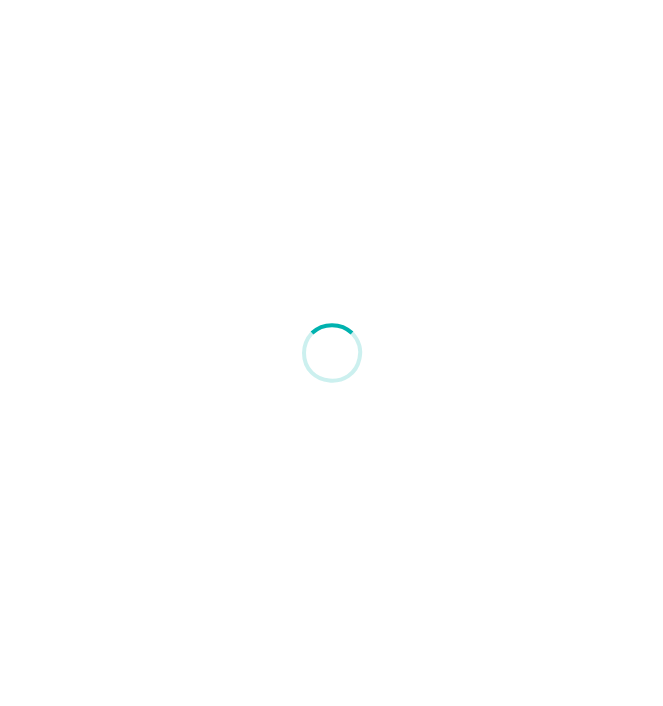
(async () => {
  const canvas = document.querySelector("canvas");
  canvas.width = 663;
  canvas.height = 706;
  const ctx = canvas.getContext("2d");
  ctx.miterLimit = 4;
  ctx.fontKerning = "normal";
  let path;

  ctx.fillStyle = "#ffffff";
  ctx.fillRect(0, 0, 663, 706);
  path = new Path2D("M312 333C323 322.5 341 322.5 352 333");
  ctx.strokeStyle = "#00b2af";
  ctx.lineWidth = 4;
  ctx.stroke(path);
  path = new Path2D("M352 333C358.5 340 361.5 349.5 359.5 358.5C353 391 304 386.5 304 353C304 345.5 307 338.5 312 333");
  ctx.strokeStyle = "rgba(0, 178, 175, 0.2)";
  ctx.stroke(path);
})();
